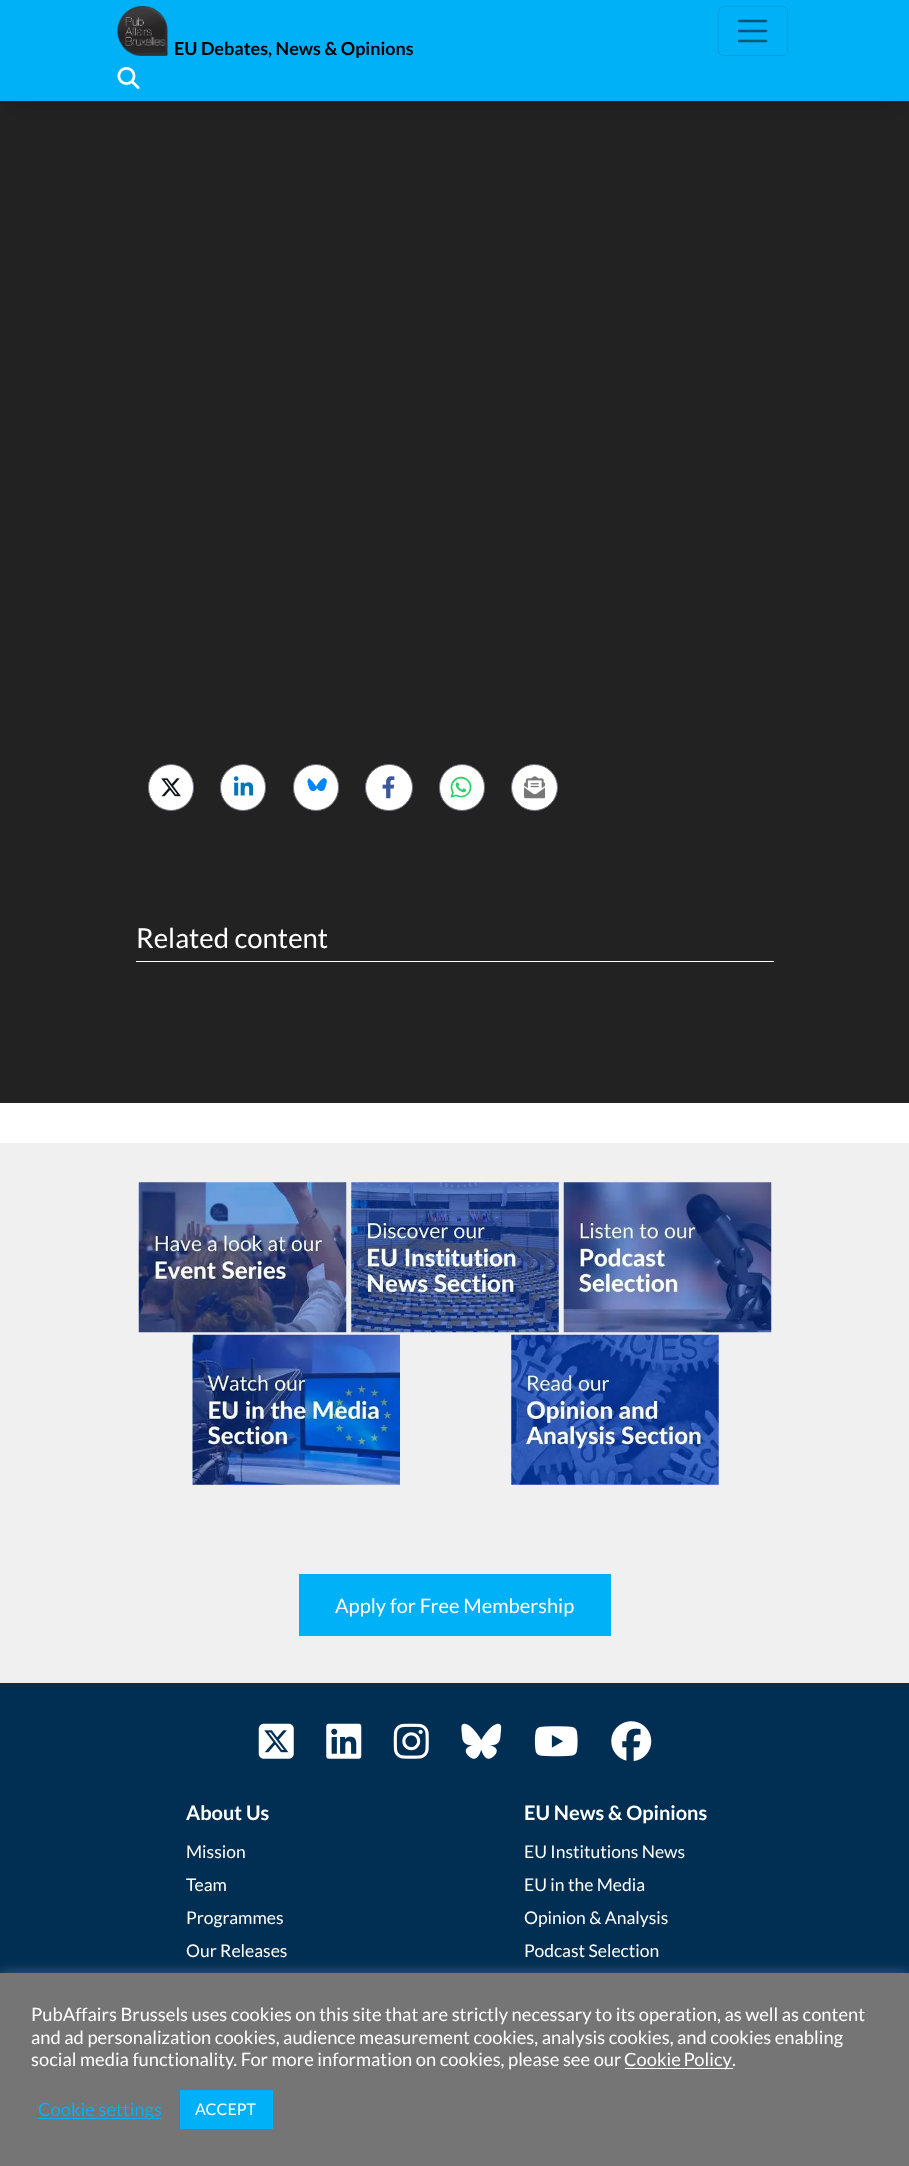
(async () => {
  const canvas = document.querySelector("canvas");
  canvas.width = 909;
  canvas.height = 2166;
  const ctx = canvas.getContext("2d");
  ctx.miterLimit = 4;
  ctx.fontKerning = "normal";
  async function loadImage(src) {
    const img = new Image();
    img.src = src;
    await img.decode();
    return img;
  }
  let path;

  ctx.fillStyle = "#ffffff";
  ctx.fillRect(0, 0, 909, 2166);
  ctx.fillStyle = "#222222";
  ctx.fillRect(0, 101, 909, 1002);
  ctx.fillStyle = "rgba(0, 0, 0, 0.2)";
  ctx.filter = "blur(9.5px)";
  ctx.beginPath();
  ctx.rect(19, 38, 872, 63);
  ctx.fill();
  ctx.filter = "none";
  ctx.fillStyle = "#00b1f8";
  ctx.fillRect(0, 0, 909, 101);
  ctx.drawImage(await loadImage("img/1.png"), 117, 6, 51, 50);
  ctx.beginPath();
  ctx.roundRect(718.5, 6.5, 69, 49, 4.5);
  ctx.strokeStyle = "#009fdf";
  ctx.stroke();
  path = new Path2D("M739 21H766M739 31H766M739 41H766");
  ctx.strokeStyle = "#00597c";
  ctx.lineWidth = 2.5;
  ctx.lineCap = "round";
  ctx.stroke(path);
  ctx.drawImage(await loadImage("img/2.png"), 117, 67, 23, 22);
  ctx.fillStyle = "#ffffff";
  ctx.beginPath();
  ctx.roundRect(148.5, 764.5, 45, 46, 22.5);
  ctx.fill();
  ctx.strokeStyle = "#6e7381";
  ctx.lineWidth = 1;
  ctx.stroke();
  ctx.drawImage(await loadImage("img/3.png"), 161, 778, 20, 19);
  ctx.beginPath();
  ctx.roundRect(220.5, 764.5, 45, 46, 22.5);
  ctx.fill();
  ctx.stroke();
  ctx.drawImage(await loadImage("img/4.png"), 233, 776, 21, 20);
  ctx.beginPath();
  ctx.roundRect(293.5, 764.5, 45, 46, 22.5);
  ctx.fill();
  ctx.stroke();
  ctx.drawImage(await loadImage("img/5.png"), 307, 778, 20, 14);
  ctx.beginPath();
  ctx.roundRect(365.5, 764.5, 47, 46, 23);
  ctx.fill();
  ctx.stroke();
  ctx.drawImage(await loadImage("img/6.png"), 382, 776, 13, 23);
  ctx.beginPath();
  ctx.roundRect(439.5, 764.5, 45, 46, 22.5);
  ctx.fill();
  ctx.stroke();
  ctx.drawImage(await loadImage("img/7.png"), 450, 776, 22, 22);
  ctx.beginPath();
  ctx.arc(534.5, 787.5, 23, 0, Math.PI * 2);
  ctx.fill();
  ctx.stroke();
  ctx.drawImage(await loadImage("img/8.png"), 524, 776, 21, 23);
  ctx.fillRect(136, 961, 638, 1);
  ctx.fillStyle = "#f0f0f0";
  ctx.fillRect(0, 1143, 909, 540);
  ctx.drawImage(await loadImage("img/9.png"), 138, 1182, 209, 151);
  ctx.drawImage(await loadImage("img/10.png"), 351, 1182, 208, 151);
  ctx.drawImage(await loadImage("img/11.png"), 563, 1182, 209, 151);
  ctx.drawImage(await loadImage("img/12.png"), 192, 1334, 208, 151);
  ctx.drawImage(await loadImage("img/13.png"), 511, 1334, 208, 151);
  ctx.fillStyle = "#00b1f8";
  ctx.fillRect(299, 1574, 312, 62);
  ctx.fillStyle = "#012e53";
  ctx.fillRect(0, 1683, 909, 290);
  ctx.drawImage(await loadImage("img/14.png"), 258, 1723, 36, 36);
  ctx.drawImage(await loadImage("img/15.png"), 326, 1723, 36, 36);
  ctx.drawImage(await loadImage("img/16.png"), 393, 1723, 36, 36);
  ctx.drawImage(await loadImage("img/17.png"), 461, 1723, 41, 36);
  ctx.drawImage(await loadImage("img/18.png"), 534, 1726, 44, 31);
  ctx.drawImage(await loadImage("img/19.png"), 611, 1721, 41, 40);
  ctx.fillStyle = "rgba(172, 171, 171, 0.3)";
  ctx.filter = "blur(6px)";
  ctx.beginPath();
  ctx.rect(0, 1971, 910, 194);
  ctx.fill();
  ctx.filter = "none";
  for (const [x, y, w, h, color] of [
    [0, 1973, 909, 193, "#757575"],
    [625, 2068, 108, 1, "#ffffff"],
    [38, 2118, 123, 1, "#00b1f8"],
    [180, 2090, 93, 39, "#00b1f8"],
  ]) {
    ctx.fillStyle = color;
    ctx.fillRect(x, y, w, h);
  }
  ctx.font = "bold 18px Lato";
  ctx.fillStyle = "#000000";
  ctx.fillText("EU Debates, News & Opinions", 174, 55);
  ctx.font = "27.5px Lato";
  ctx.fillStyle = "#ffffff";
  ctx.fillText("Related content", 136, 948);
  ctx.font = "20px Lato";
  ctx.fillText("Apply for Free Membership", 335, 1613);
  ctx.font = "bold 20px Lato";
  ctx.fillText("About Us", 186, 1820);
  ctx.font = "17.5px Lato";
  for (const [text, x, y] of [
    ["Mission", 186, 1858],
    ["Team", 186, 1891],
    ["Programmes", 186, 1924],
    ["Our Releases", 186, 1957],
  ]) {
    ctx.fillText(text, x, y);
  }
  ctx.font = "bold 20px Lato";
  ctx.fillText("EU News & Opinions", 524, 1820);
  ctx.font = "17.5px Lato";
  for (const [text, x, y] of [
    ["EU Institutions News", 524, 1858],
    ["EU in the Media", 524, 1891],
    ["Opinion & Analysis", 524, 1924],
    ["Podcast Selection", 524, 1957],
  ]) {
    ctx.fillText(text, x, y);
  }
  ctx.font = "18.35px Lato";
  for (const [text, x, y] of [
    ["PubAffairs Brussels uses cookies on this site that are strictly necessary to its operation, as well as content", 31, 2021],
    ["and ad personalization cookies, audience measurement cookies, analysis cookies, and cookies enabling", 31, 2044],
    ["social media functionality. For more information on cookies, please see our", 31, 2066],
  ]) {
    ctx.fillText(text, x, y);
  }
  ctx.wordSpacing = "-1px";
  ctx.fillText("Cookie Policy", 624, 2066);
  ctx.wordSpacing = "0px";
  ctx.fillText(".", 732, 2066);
  ctx.fillStyle = "#00b1f8";
  ctx.fillText("Cookie settings", 38, 2116);
  ctx.font = "16px Lato";
  ctx.fillStyle = "#ffffff";
  ctx.fillText("ACCEPT", 195, 2115);
})();
